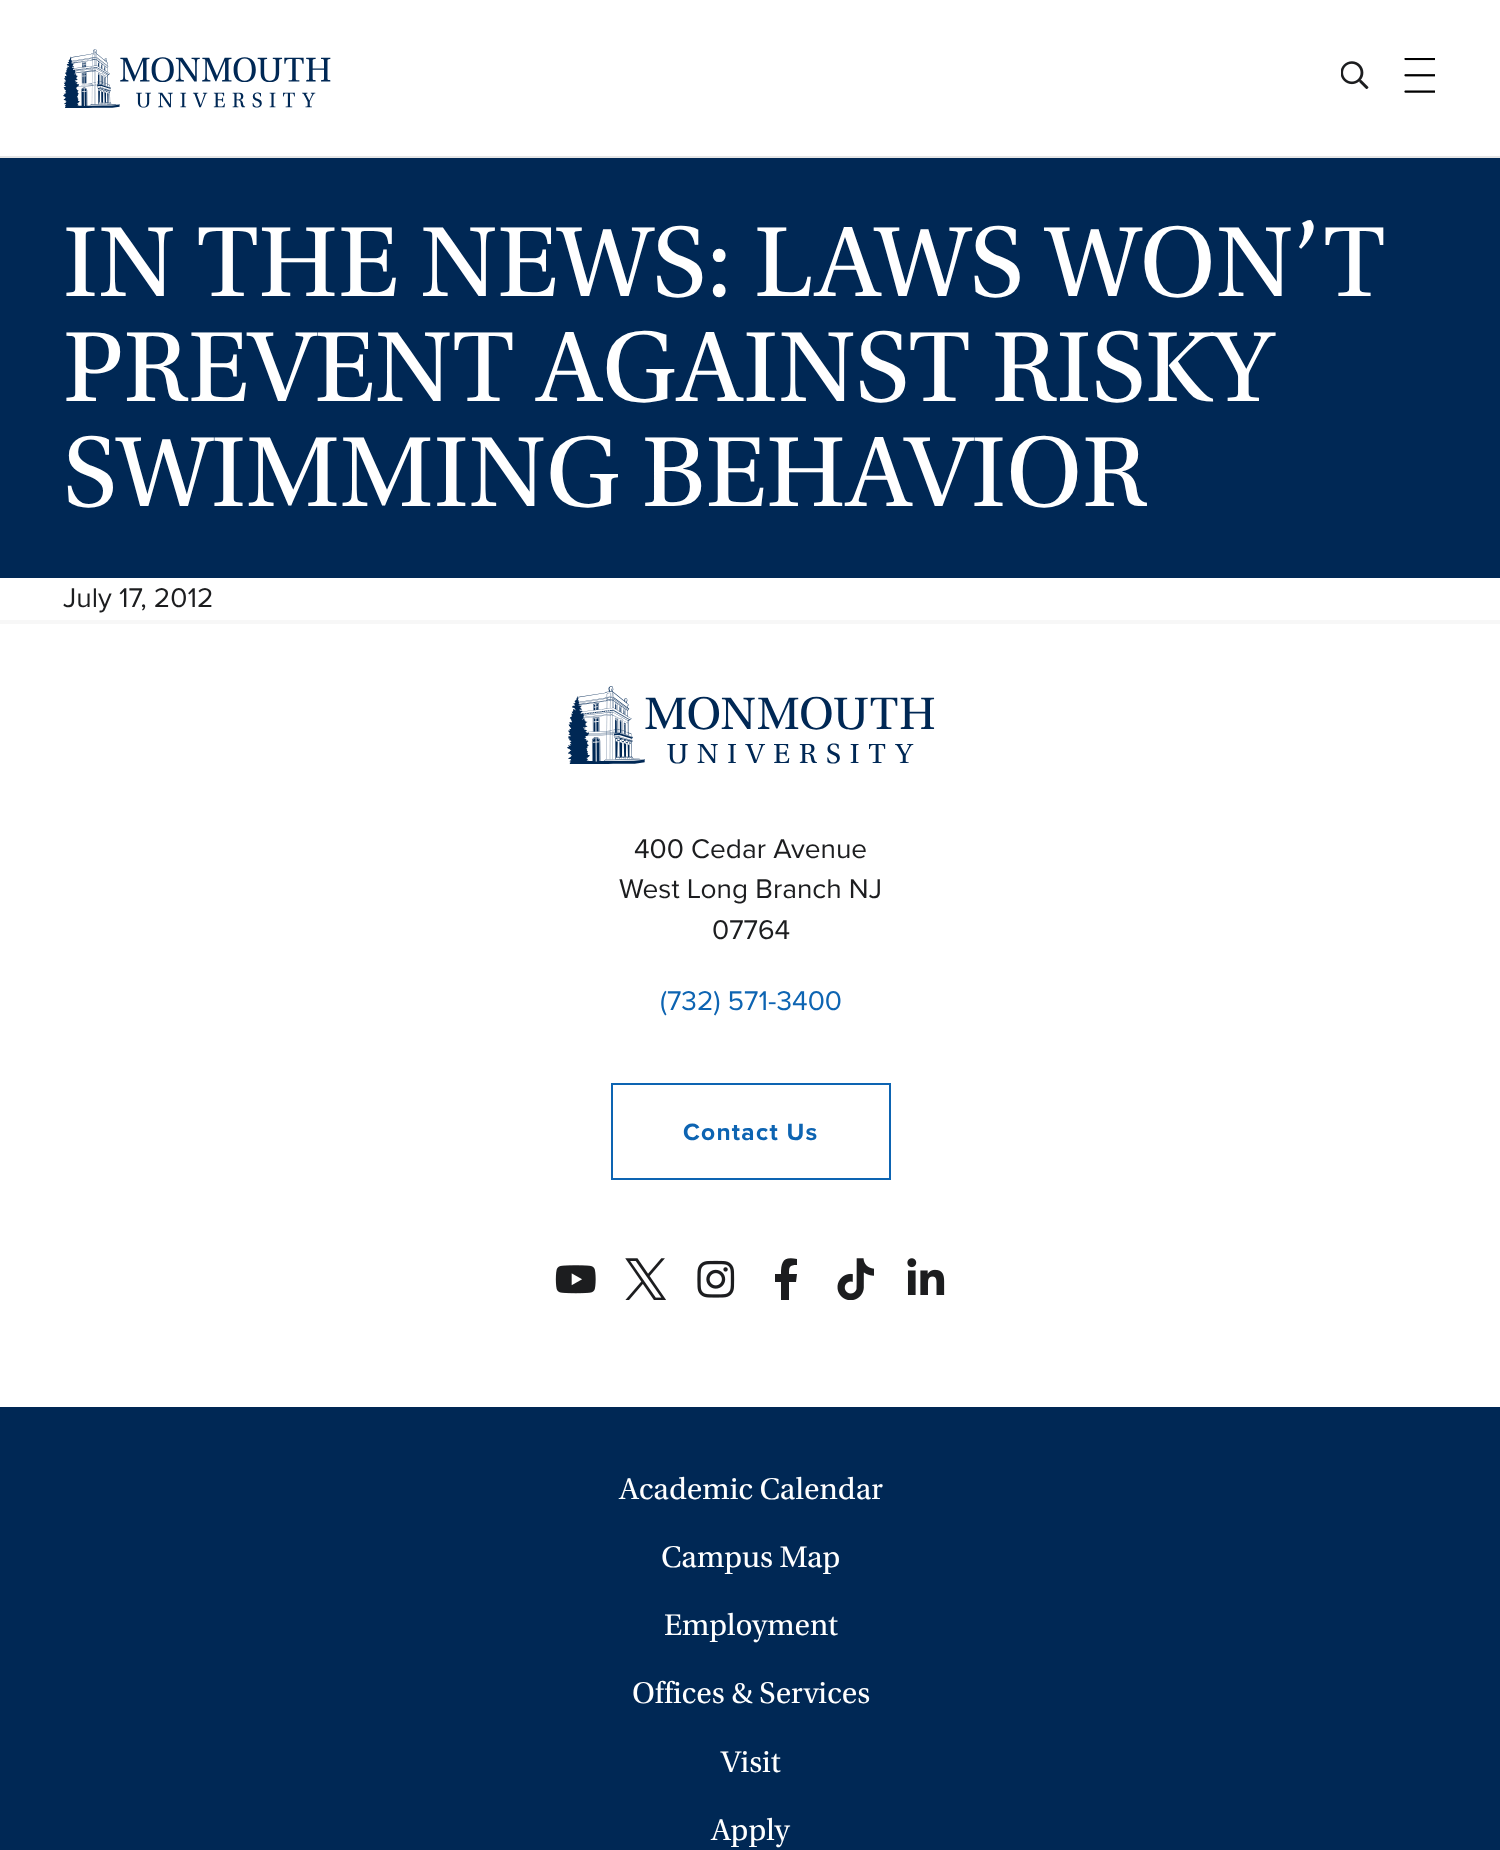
(async () => {
  const canvas = document.querySelector("canvas");
  canvas.width = 1500;
  canvas.height = 1850;
  const ctx = canvas.getContext("2d");
  ctx.miterLimit = 4;
  ctx.fontKerning = "normal";
  async function loadImage(src) {
    const img = new Image();
    img.src = src;
    await img.decode();
    return img;
  }
  let path;

  ctx.fillStyle = "#ffffff";
  ctx.fillRect(0, 0, 1500, 1850);
  ctx.fillStyle = "#e5e5e5";
  ctx.fillRect(0, 156, 1500, 2);
  ctx.drawImage(await loadImage("img/1.png"), 63, 49, 268, 59);
  ctx.drawImage(await loadImage("img/2.png"), 1341, 61, 28, 28);
  ctx.drawImage(await loadImage("img/3.png"), 1404, 58, 31, 35);
  ctx.fillStyle = "#002855";
  ctx.fillRect(0, 158, 1500, 420);
  ctx.fillStyle = "#f7f7f7";
  ctx.fillRect(0, 620, 1500, 4);
  ctx.drawImage(await loadImage("img/4.png"), 567, 686, 368, 78);
  ctx.strokeStyle = "#0d64b2";
  ctx.lineWidth = 2;
  ctx.strokeRect(612, 1084, 278, 95);
  ctx.drawImage(await loadImage("img/5.png"), 555, 1265, 41, 29);
  ctx.drawImage(await loadImage("img/6.png"), 625, 1258, 41, 42);
  ctx.drawImage(await loadImage("img/7.png"), 697, 1260, 38, 38);
  ctx.fillStyle = "#1c1d1f";
  path = new Path2D("M796 1282L797 1274H789C789 1267 789 1265 797 1265V1259C783 1256 781 1262 781 1274H775V1282H781V1300H789V1282Z");
  ctx.fill(path);
  ctx.drawImage(await loadImage("img/8.png"), 837, 1258, 37, 42);
  ctx.drawImage(await loadImage("img/9.png"), 907, 1258, 38, 37);
  ctx.fillStyle = "#002855";
  ctx.fillRect(0, 1407, 1500, 443);
  ctx.font = "105px Utopia";
  ctx.fillStyle = "#ffffff";
  for (const [text, x, y] of [
    ["IN THE NEWS: LAWS WON’T", 63, 296],
    ["PREVENT AGAINST RISKY", 63, 401],
    ["SWIMMING BEHAVIOR", 63, 506],
  ]) {
    ctx.fillText(text, x, y);
  }
  ctx.font = "28px Proxima Nova";
  ctx.fillStyle = "#1c1d1f";
  for (const [text, x, y] of [
    ["July 17, 2012", 63, 607],
    ["400 Cedar Avenue", 634, 858],
    ["West Long Branch NJ", 619, 898],
    ["07764", 712, 939],
  ]) {
    ctx.fillText(text, x, y);
  }
  ctx.fillStyle = "#0d64b2";
  ctx.fillText("(732) 571-3400", 660, 1010);
  ctx.letterSpacing = "1.25px";
  ctx.font = "bold 24.5px Proxima Nova";
  ctx.fillText("Contact Us", 683, 1140);
  ctx.letterSpacing = "0px";
  ctx.font = "31.5px Utopia";
  ctx.fillStyle = "#ffffff";
  for (const [text, x, y] of [
    ["Academic Calendar", 619, 1499],
    ["Campus Map", 661, 1567],
    ["Employment", 664, 1635],
    ["Offices & Services", 632, 1703],
    ["Visit", 721, 1772],
    ["Apply", 711, 1840],
  ]) {
    ctx.fillText(text, x, y);
  }
})();
